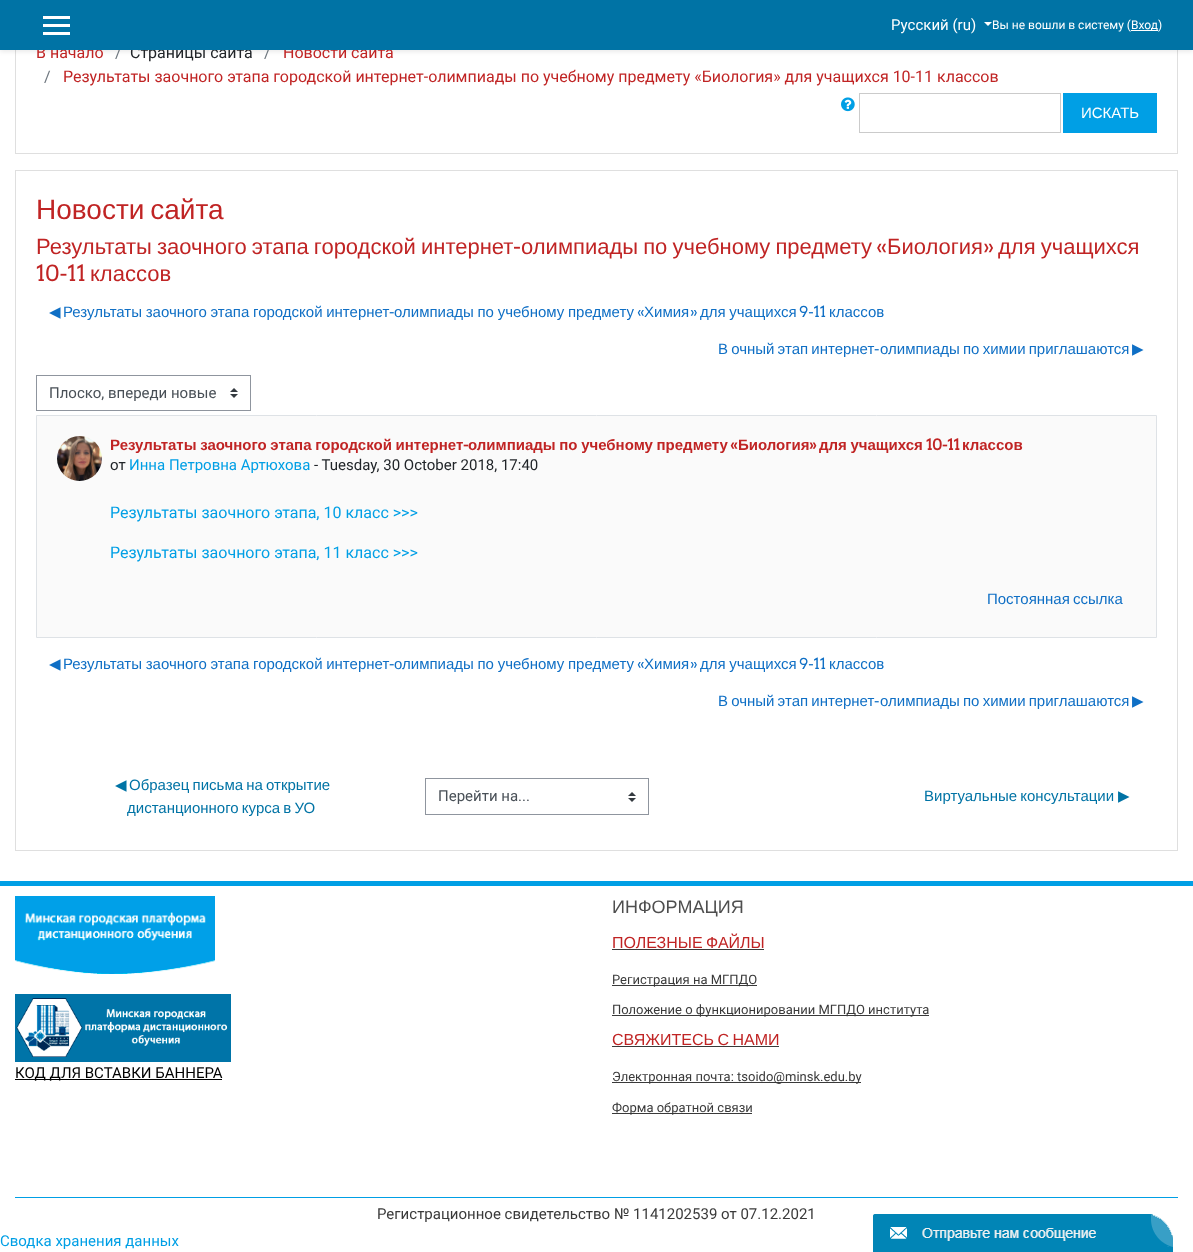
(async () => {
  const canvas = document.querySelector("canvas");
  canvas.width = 1193;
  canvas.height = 1252;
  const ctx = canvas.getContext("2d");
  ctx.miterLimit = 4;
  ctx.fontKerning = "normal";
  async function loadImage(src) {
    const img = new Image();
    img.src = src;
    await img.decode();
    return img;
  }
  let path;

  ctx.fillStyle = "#ffffff";
  ctx.fillRect(0, 0, 1193, 1252);
  ctx.strokeStyle = "#dfdfdf";
  ctx.strokeRect(15.5, -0.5, 1162, 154);
  ctx.fillStyle = "rgba(0, 0, 0, 0.08)";
  ctx.filter = "blur(2px)";
  ctx.beginPath();
  ctx.rect(0, 2, 1193, 50);
  ctx.fill();
  ctx.filter = "none";
  ctx.drawImage(await loadImage("img/1.png"), 873, 1214, 300, 38);
  ctx.drawImage(await loadImage("img/2.png"), 841, 97, 14, 15);
  ctx.strokeStyle = "#cbcbcb";
  ctx.strokeRect(859.5, 93.5, 201, 39);
  ctx.fillStyle = "#009fe5";
  ctx.fillRect(1063, 93, 94, 40);
  ctx.strokeStyle = "#dfdfdf";
  ctx.strokeRect(15.5, 170.5, 1162, 680);
  ctx.drawImage(await loadImage("img/3.png"), 230, 388, 8, 10);
  ctx.strokeStyle = "#8f959e";
  ctx.strokeRect(36.5, 375.5, 214, 35);
  ctx.fillStyle = "#fafafa";
  ctx.beginPath();
  ctx.rect(36.5, 415.5, 1120, 222);
  ctx.fill();
  ctx.strokeStyle = "#dee2e6";
  ctx.stroke();
  ctx.drawImage(await loadImage("img/4.png"), 57, 436, 45, 45);
  ctx.drawImage(await loadImage("img/3.png"), 628, 792, 8, 10);
  ctx.strokeStyle = "#8f959e";
  ctx.strokeRect(425.5, 778.5, 223, 36);
  ctx.fillStyle = "#009fe5";
  ctx.fillRect(0, 881, 1193, 5);
  ctx.drawImage(await loadImage("img/5.png"), 15, 896, 200, 78);
  ctx.drawImage(await loadImage("img/6.png"), 15, 994, 216, 68);
  for (const [x, y, w, h, color] of [
    [15, 1079, 207, 1, "#000000"],
    [612, 949, 152, 1, "#3a3a3a"],
    [612, 985, 145, 1, "#3a3a3a"],
    [612, 1015, 317, 1, "#3a3a3a"],
    [612, 1046, 167, 1, "#3a3a3a"],
    [612, 1082, 249, 1, "#3a3a3a"],
    [612, 1113, 140, 1, "#3a3a3a"],
    [15, 1197, 1163, 1, "#009fe5"],
  ]) {
    ctx.fillStyle = color;
    ctx.fillRect(x, y, w, h);
  }
  ctx.font = "16px Roboto";
  ctx.fillStyle = "#c02424";
  ctx.fillText("В начало", 36, 58);
  ctx.fillStyle = "#6c757d";
  ctx.fillText("/", 115, 58);
  ctx.fillStyle = "#212529";
  ctx.fillText("Страницы сайта", 130, 58);
  ctx.fillStyle = "#6c757d";
  ctx.fillText("/", 264, 58);
  ctx.fillStyle = "#c02424";
  ctx.fillText("Новости сайта", 283, 58);
  ctx.fillStyle = "#0073a5";
  ctx.fillRect(0, 0, 1193, 50);
  ctx.fillStyle = "#ffffff";
  path = new Path2D("M984 22H992L988 26Z");
  ctx.fill(path);
  ctx.font = "15px Roboto";
  ctx.fillText("Русский (ru)", 891, 30);
  ctx.fillRect(1131, 30, 27, 1);
  ctx.font = "12px Roboto";
  ctx.fillText("Вход)", 1131, 29);
  ctx.fillText("Вы не вошли в систему (", 992, 29);
  for (const [x, y, w, h, color] of [
    [43, 32, 27, 3, "#ffffff"],
    [43, 24, 27, 3, "#ffffff"],
    [43, 16, 27, 3, "#ffffff"],
  ]) {
    ctx.fillStyle = color;
    ctx.fillRect(x, y, w, h);
  }
  ctx.font = "16px Roboto";
  ctx.fillStyle = "#6c757d";
  ctx.fillText("/", 44, 82);
  ctx.fillStyle = "#c02424";
  ctx.fillText("Результаты заочного этапа городской интернет-олимпиады по учебному предмету «Биология» для учащихся 10-11 классов", 63, 82);
  ctx.font = "15px Liberation Sans";
  ctx.fillStyle = "#ffffff";
  ctx.fillText("ИСКАТЬ", 1081, 118);
  ctx.wordSpacing = "-2px";
  ctx.font = "28px Liberation Sans";
  ctx.fillStyle = "#c02424";
  ctx.fillText("Новости сайта", 36, 219);
  ctx.wordSpacing = "-1px";
  ctx.font = "22px Liberation Sans";
  ctx.fillText("Результаты заочного этапа городской интернет", 36, 254);
  ctx.wordSpacing = "0px";
  ctx.font = "22px Arvo";
  ctx.fillText("-", 513, 254);
  ctx.wordSpacing = "-1px";
  ctx.font = "22px Liberation Sans";
  ctx.fillText("олимпиады по учебному предмету", 521, 254);
  ctx.wordSpacing = "0px";
  ctx.font = "22px Arvo";
  ctx.fillText("«", 876, 254);
  ctx.font = "22px Liberation Sans";
  ctx.fillText("Биология", 887, 254);
  ctx.font = "22px Arvo";
  ctx.fillText("»", 983, 254);
  ctx.wordSpacing = "-1px";
  ctx.font = "22px Liberation Sans";
  ctx.fillText("для учащихся", 998, 254);
  ctx.wordSpacing = "0px";
  ctx.font = "22px Arvo";
  ctx.fillText("10-11", 36, 281);
  ctx.font = "22px Liberation Sans";
  ctx.fillText("классов", 90, 281);
  ctx.font = "15px DejaVu Sans";
  ctx.fillStyle = "#0f6fc5";
  ctx.fillText("◀︎", 49, 317);
  ctx.wordSpacing = "-0.5px";
  ctx.font = "15px Liberation Sans";
  ctx.fillText("Результаты заочного этапа городской интернет", 63, 317);
  ctx.wordSpacing = "0px";
  ctx.font = "15px Arvo";
  ctx.fillText("-", 389, 317);
  ctx.wordSpacing = "-0.5px";
  ctx.font = "15px Liberation Sans";
  ctx.fillText("олимпиады по учебному предмету", 394, 317);
  ctx.wordSpacing = "0px";
  ctx.font = "15px Arvo";
  ctx.fillText("«", 637, 317);
  ctx.font = "15px Liberation Sans";
  ctx.fillText("Химия", 644, 317);
  ctx.font = "15px Arvo";
  ctx.fillText("»", 690, 317);
  ctx.wordSpacing = "-0.5px";
  ctx.font = "15px Liberation Sans";
  ctx.fillText("для учащихся", 700, 317);
  ctx.wordSpacing = "0px";
  ctx.font = "15px Arvo";
  ctx.fillText("9-11", 799, 317);
  ctx.font = "15px Liberation Sans";
  ctx.fillText("классов", 829, 317);
  ctx.wordSpacing = "-1px";
  ctx.fillText("В очный этап интернет", 718, 354);
  ctx.wordSpacing = "0px";
  ctx.font = "15px Arvo";
  ctx.fillText("-", 874, 354);
  ctx.wordSpacing = "-1px";
  ctx.font = "15px Liberation Sans";
  ctx.fillText("олимпиады по химии приглашаются", 880, 354);
  ctx.wordSpacing = "0px";
  ctx.font = "15px DejaVu Sans";
  ctx.fillText("▶︎", 1132, 354);
  ctx.font = "15px Roboto";
  ctx.fillStyle = "#495057";
  ctx.fillText("Плоско, впереди новые", 49, 398);
  ctx.wordSpacing = "-0.5px";
  ctx.font = "bold 15px Liberation Sans";
  ctx.fillStyle = "#c02424";
  ctx.fillText("Результаты заочного этапа городской интернет", 110, 450);
  ctx.wordSpacing = "0px";
  ctx.font = "bold 15px Arvo";
  ctx.fillText("-", 463, 450);
  ctx.wordSpacing = "-0.5px";
  ctx.font = "bold 15px Liberation Sans";
  ctx.fillText("олимпиады по учебному предмету", 468, 450);
  ctx.wordSpacing = "0px";
  ctx.font = "bold 15px Arvo";
  ctx.fillText("«", 730, 450);
  ctx.font = "bold 15px Liberation Sans";
  ctx.fillText("Биология", 738, 450);
  ctx.font = "bold 15px Arvo";
  ctx.fillText("»", 809, 450);
  ctx.wordSpacing = "-0.5px";
  ctx.font = "bold 15px Liberation Sans";
  ctx.fillText("для учащихся", 819, 450);
  ctx.wordSpacing = "0px";
  ctx.font = "bold 15px Arvo";
  ctx.fillText("10-11", 926, 450);
  ctx.font = "bold 15px Liberation Sans";
  ctx.fillText("классов", 962, 450);
  ctx.font = "15px Roboto";
  ctx.fillStyle = "#212529";
  ctx.fillText("от", 110, 470);
  ctx.fillStyle = "#009fe5";
  ctx.fillText("Инна Петровна Артюхова", 129, 470);
  ctx.fillStyle = "#212529";
  ctx.fillText("- Tuesday, 30 October 2018, 17:40", 314, 470);
  ctx.font = "16px Roboto";
  ctx.fillStyle = "#009fe5";
  ctx.fillText("Результаты заочного этапа, 10 класс >>>", 110, 518);
  ctx.fillText("Результаты заочного этапа, 11 класс >>>", 110, 558);
  ctx.wordSpacing = "-1px";
  ctx.font = "15px Liberation Sans";
  ctx.fillStyle = "#0f6fc5";
  ctx.fillText("Постоянная ссылка", 987, 604);
  ctx.wordSpacing = "0px";
  ctx.font = "15px DejaVu Sans";
  ctx.fillText("◀︎", 49, 669);
  ctx.wordSpacing = "-0.5px";
  ctx.font = "15px Liberation Sans";
  ctx.fillText("Результаты заочного этапа городской интернет", 63, 669);
  ctx.wordSpacing = "0px";
  ctx.font = "15px Arvo";
  ctx.fillText("-", 389, 669);
  ctx.wordSpacing = "-0.5px";
  ctx.font = "15px Liberation Sans";
  ctx.fillText("олимпиады по учебному предмету", 394, 669);
  ctx.wordSpacing = "0px";
  ctx.font = "15px Arvo";
  ctx.fillText("«", 637, 669);
  ctx.font = "15px Liberation Sans";
  ctx.fillText("Химия", 644, 669);
  ctx.font = "15px Arvo";
  ctx.fillText("»", 690, 669);
  ctx.wordSpacing = "-0.5px";
  ctx.font = "15px Liberation Sans";
  ctx.fillText("для учащихся", 700, 669);
  ctx.wordSpacing = "0px";
  ctx.font = "15px Arvo";
  ctx.fillText("9-11", 799, 669);
  ctx.font = "15px Liberation Sans";
  ctx.fillText("классов", 829, 669);
  ctx.wordSpacing = "-1px";
  ctx.fillText("В очный этап интернет", 718, 706);
  ctx.wordSpacing = "0px";
  ctx.font = "15px Arvo";
  ctx.fillText("-", 874, 706);
  ctx.wordSpacing = "-1px";
  ctx.font = "15px Liberation Sans";
  ctx.fillText("олимпиады по химии приглашаются", 880, 706);
  ctx.wordSpacing = "0px";
  ctx.font = "15px DejaVu Sans";
  ctx.fillText("▶︎", 1132, 706);
  ctx.fillStyle = "#0073a5";
  ctx.fillText("◀︎", 115, 790);
  ctx.wordSpacing = "-1px";
  ctx.font = "15px Liberation Sans";
  ctx.fillText("Образец письма на открытие", 129, 790);
  ctx.fillText("дистанционного курса в УО", 127, 813);
  ctx.wordSpacing = "0px";
  ctx.font = "15px Roboto";
  ctx.fillStyle = "#495057";
  ctx.fillText("Перейти на...", 438, 801);
  ctx.wordSpacing = "-1px";
  ctx.font = "15px Liberation Sans";
  ctx.fillStyle = "#0073a5";
  ctx.fillText("Виртуальные консультации", 924, 801);
  ctx.wordSpacing = "0px";
  ctx.font = "15px DejaVu Sans";
  ctx.fillText("▶︎", 1118, 801);
  ctx.font = "15px Roboto";
  ctx.fillStyle = "#000000";
  ctx.fillText("КОД ДЛЯ ВСТАВКИ БАННЕРА", 15, 1078);
  ctx.font = "18px Liberation Sans";
  ctx.fillStyle = "#4e4e4e";
  ctx.fillText("ИНФОРМАЦИЯ", 612, 913);
  ctx.wordSpacing = "-1px";
  ctx.font = "16px Liberation Sans";
  ctx.fillStyle = "#c02424";
  ctx.fillText("ПОЛЕЗНЫЕ ФАЙЛЫ", 612, 948);
  ctx.wordSpacing = "0px";
  ctx.font = "13px Roboto";
  ctx.fillStyle = "#3a3a3a";
  ctx.fillText("Регистрация на МГПДО", 612, 984);
  ctx.fillText("Положение о функционировании МГПДО института", 612, 1014);
  ctx.wordSpacing = "-1px";
  ctx.font = "16px Liberation Sans";
  ctx.fillStyle = "#c02424";
  ctx.fillText("СВЯЖИТЕСЬ С НАМИ", 612, 1045);
  ctx.wordSpacing = "0px";
  ctx.font = "13px Roboto";
  ctx.fillStyle = "#3a3a3a";
  ctx.fillText("Электронная почта: tsoido@minsk.edu.by", 612, 1081);
  ctx.fillText("Форма обратной связи", 612, 1112);
  ctx.font = "15px Roboto";
  ctx.fillText("Регистрационное свидетельство № 1141202539 от 07.12.2021", 377, 1219);
  ctx.fillStyle = "#009fe5";
  ctx.fillText("Сводка хранения данных", 0, 1246);
})();
